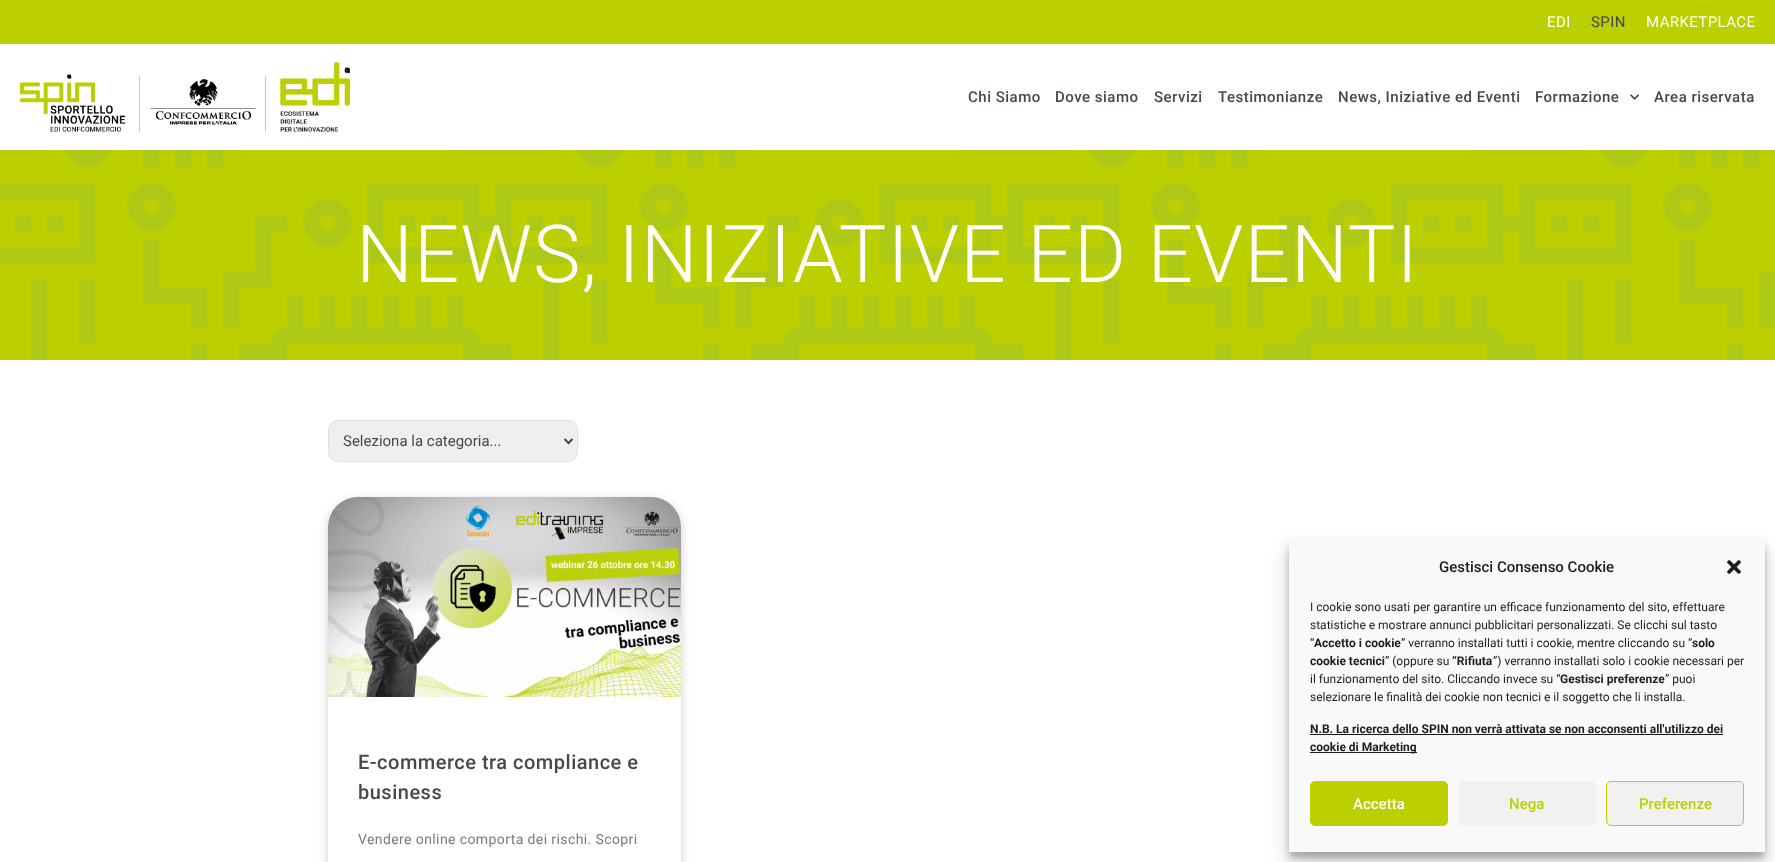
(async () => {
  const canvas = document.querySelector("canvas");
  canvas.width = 1775;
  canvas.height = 862;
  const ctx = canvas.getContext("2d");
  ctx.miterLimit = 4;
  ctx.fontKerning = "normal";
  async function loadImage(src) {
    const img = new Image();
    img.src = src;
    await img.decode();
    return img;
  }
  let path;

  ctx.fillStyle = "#ffffff";
  ctx.fillRect(0, 0, 1775, 862);
  ctx.fillStyle = "#bccf00";
  ctx.fillRect(0, 0, 1775, 44);
  ctx.drawImage(await loadImage("img/1.png"), 20, 62, 330, 70);
  ctx.drawImage(await loadImage("img/2.png"), 1630, 94, 9, 6);
  ctx.fillRect(0, 150, 1775, 210);
  ctx.drawImage(await loadImage("img/3.png"), 0, 150, 1775, 210);
  ctx.fillStyle = "#efefef";
  ctx.beginPath();
  ctx.roundRect(328.5, 420.5, 249, 41, 9.5);
  ctx.fill();
  ctx.strokeStyle = "#e0e0e0";
  ctx.stroke();
  path = new Path2D("M564.5 439L568.5 443L572.5 439");
  ctx.strokeStyle = "#424a4d";
  ctx.lineWidth = 2;
  ctx.stroke(path);
  ctx.save();
  path = new Path2D("M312 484H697V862H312ZM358 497H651C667.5 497 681 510.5 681 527V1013H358C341.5 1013 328 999.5 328 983V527C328 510.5 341.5 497 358 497Z");
  ctx.clip(path, "evenodd");
  ctx.fillStyle = "rgba(0, 0, 0, 0.2)";
  ctx.filter = "blur(5px)";
  ctx.beginPath();
  ctx.roundRect(328, 500, 353, 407, 30);
  ctx.fill();
  ctx.filter = "none";
  ctx.restore();
  ctx.drawImage(await loadImage("img/4.png"), 328, 497, 353, 200);
  ctx.fillStyle = "rgba(0, 0, 0, 0.23)";
  ctx.filter = "blur(3px)";
  ctx.beginPath();
  ctx.rect(1289, 546, 476, 312);
  ctx.fill();
  ctx.filter = "none";
  ctx.fillStyle = "rgba(0, 0, 0, 0.19)";
  ctx.filter = "blur(10px)";
  ctx.beginPath();
  ctx.rect(1289, 550, 476, 312);
  ctx.fill();
  ctx.filter = "none";
  ctx.fillStyle = "#f9f9f9";
  ctx.fillRect(1289, 540, 476, 312);
  ctx.drawImage(await loadImage("img/5.png"), 1727, 560, 14, 14);
  ctx.fillStyle = "#191e23";
  ctx.fillRect(1310, 734, 413, 1);
  ctx.fillRect(1310, 752, 107, 1);
  ctx.fillStyle = "#bccf00";
  ctx.beginPath();
  ctx.roundRect(1310.5, 781.5, 137, 44, 4.5);
  ctx.fill();
  ctx.strokeStyle = "#bccf00";
  ctx.lineWidth = 1;
  ctx.stroke();
  ctx.fillStyle = "#f1f1f1";
  ctx.beginPath();
  ctx.roundRect(1458, 781, 138, 45, 5);
  ctx.fill();
  ctx.beginPath();
  ctx.roundRect(1606.5, 781.5, 137, 44, 4.5);
  ctx.fill();
  ctx.stroke();
  ctx.letterSpacing = "0.4px";
  ctx.font = "15px Roboto";
  ctx.fillStyle = "#ffffff";
  ctx.fillText("EDI", 1547, 27);
  ctx.fillStyle = "#424a4d";
  ctx.fillText("SPIN", 1591, 27);
  ctx.fillStyle = "#ffffff";
  ctx.fillText("MARKETPLACE", 1646, 27);
  ctx.letterSpacing = "0.5px";
  ctx.font = "500 15px Roboto";
  ctx.fillStyle = "#424a4d";
  for (const [text, x, y] of [
    ["Chi Siamo", 968, 102],
    ["Dove siamo", 1055, 102],
    ["Servizi", 1154, 102],
    ["Testimonianze", 1218, 102],
    ["News, Iniziative ed Eventi", 1338, 102],
    ["Formazione", 1535, 102],
    ["Area riservata", 1654, 102],
  ]) {
    ctx.fillText(text, x, y);
  }
  ctx.letterSpacing = "1px";
  ctx.font = "300 80px Roboto";
  ctx.fillStyle = "#ffffff";
  ctx.fillText("NEWS, INIZIATIVE ED EVENTI", 356, 282);
  ctx.letterSpacing = "0px";
  ctx.font = "15px Roboto";
  ctx.fillStyle = "#424a4d";
  ctx.fillText("Seleziona la categoria...", 343, 446);
  ctx.letterSpacing = "0.5px";
  ctx.font = "500 20px Roboto";
  ctx.fillText("E-commerce tra compliance e", 358, 769);
  ctx.fillText("business", 358, 799);
  ctx.letterSpacing = "0.4px";
  ctx.font = "14px Roboto";
  ctx.fillStyle = "#7a7a7a";
  ctx.fillText("Vendere online comporta dei rischi. Scopri", 358, 844);
  ctx.letterSpacing = "0px";
  ctx.font = "500 15px Roboto";
  ctx.fillStyle = "#191e23";
  ctx.fillText("Gestisci Consenso Cookie", 1439, 572);
  ctx.font = "12px Roboto";
  for (const [text, x, y] of [
    ["I cookie sono usati per garantire un efficace funzionamento del sito, effettuare", 1310, 611],
    ["statistiche e mostrare annunci pubblicitari personalizzati. Se clicchi sul tasto", 1310, 629],
    ["“", 1310, 647],
  ]) {
    ctx.fillText(text, x, y);
  }
  ctx.font = "bold 12px Roboto";
  ctx.fillText("Accetto i cookie", 1314, 647);
  ctx.font = "12px Roboto";
  ctx.fillText("” verranno installati tutti i cookie, mentre cliccando su “", 1401, 647);
  ctx.font = "bold 12px Roboto";
  ctx.fillText("solo", 1692, 647);
  ctx.fillText("cookie tecnici", 1310, 665);
  ctx.font = "12px Roboto";
  ctx.fillText("” (oppure su", 1385, 665);
  ctx.font = "bold 12px Roboto";
  ctx.fillText("“Rifiuta", 1452, 665);
  ctx.font = "12px Roboto";
  ctx.fillText("”) verranno installati solo i cookie necessari per", 1493, 665);
  ctx.fillText("il funzionamento del sito. Cliccando invece su “", 1310, 683);
  ctx.font = "bold 12px Roboto";
  ctx.fillText("Gestisci preferenze", 1560, 683);
  ctx.font = "12px Roboto";
  ctx.fillText("” puoi", 1665, 683);
  ctx.fillText("selezionare le finalità dei cookie non tecnici e il soggetto che li installa.", 1310, 701);
  ctx.font = "bold 12px Roboto";
  ctx.fillText("N.B. La ricerca dello SPIN non verrà attivata se non acconsenti all'utilizzo dei", 1310, 733);
  ctx.fillText("cookie di Marketing", 1310, 751);
  ctx.font = "500 15px Roboto";
  ctx.fillStyle = "#ffffff";
  ctx.fillText("Accetta", 1353, 809);
  ctx.fillStyle = "#bccf00";
  ctx.fillText("Nega", 1509, 809);
  ctx.fillText("Preferenze", 1639, 809);
})();
